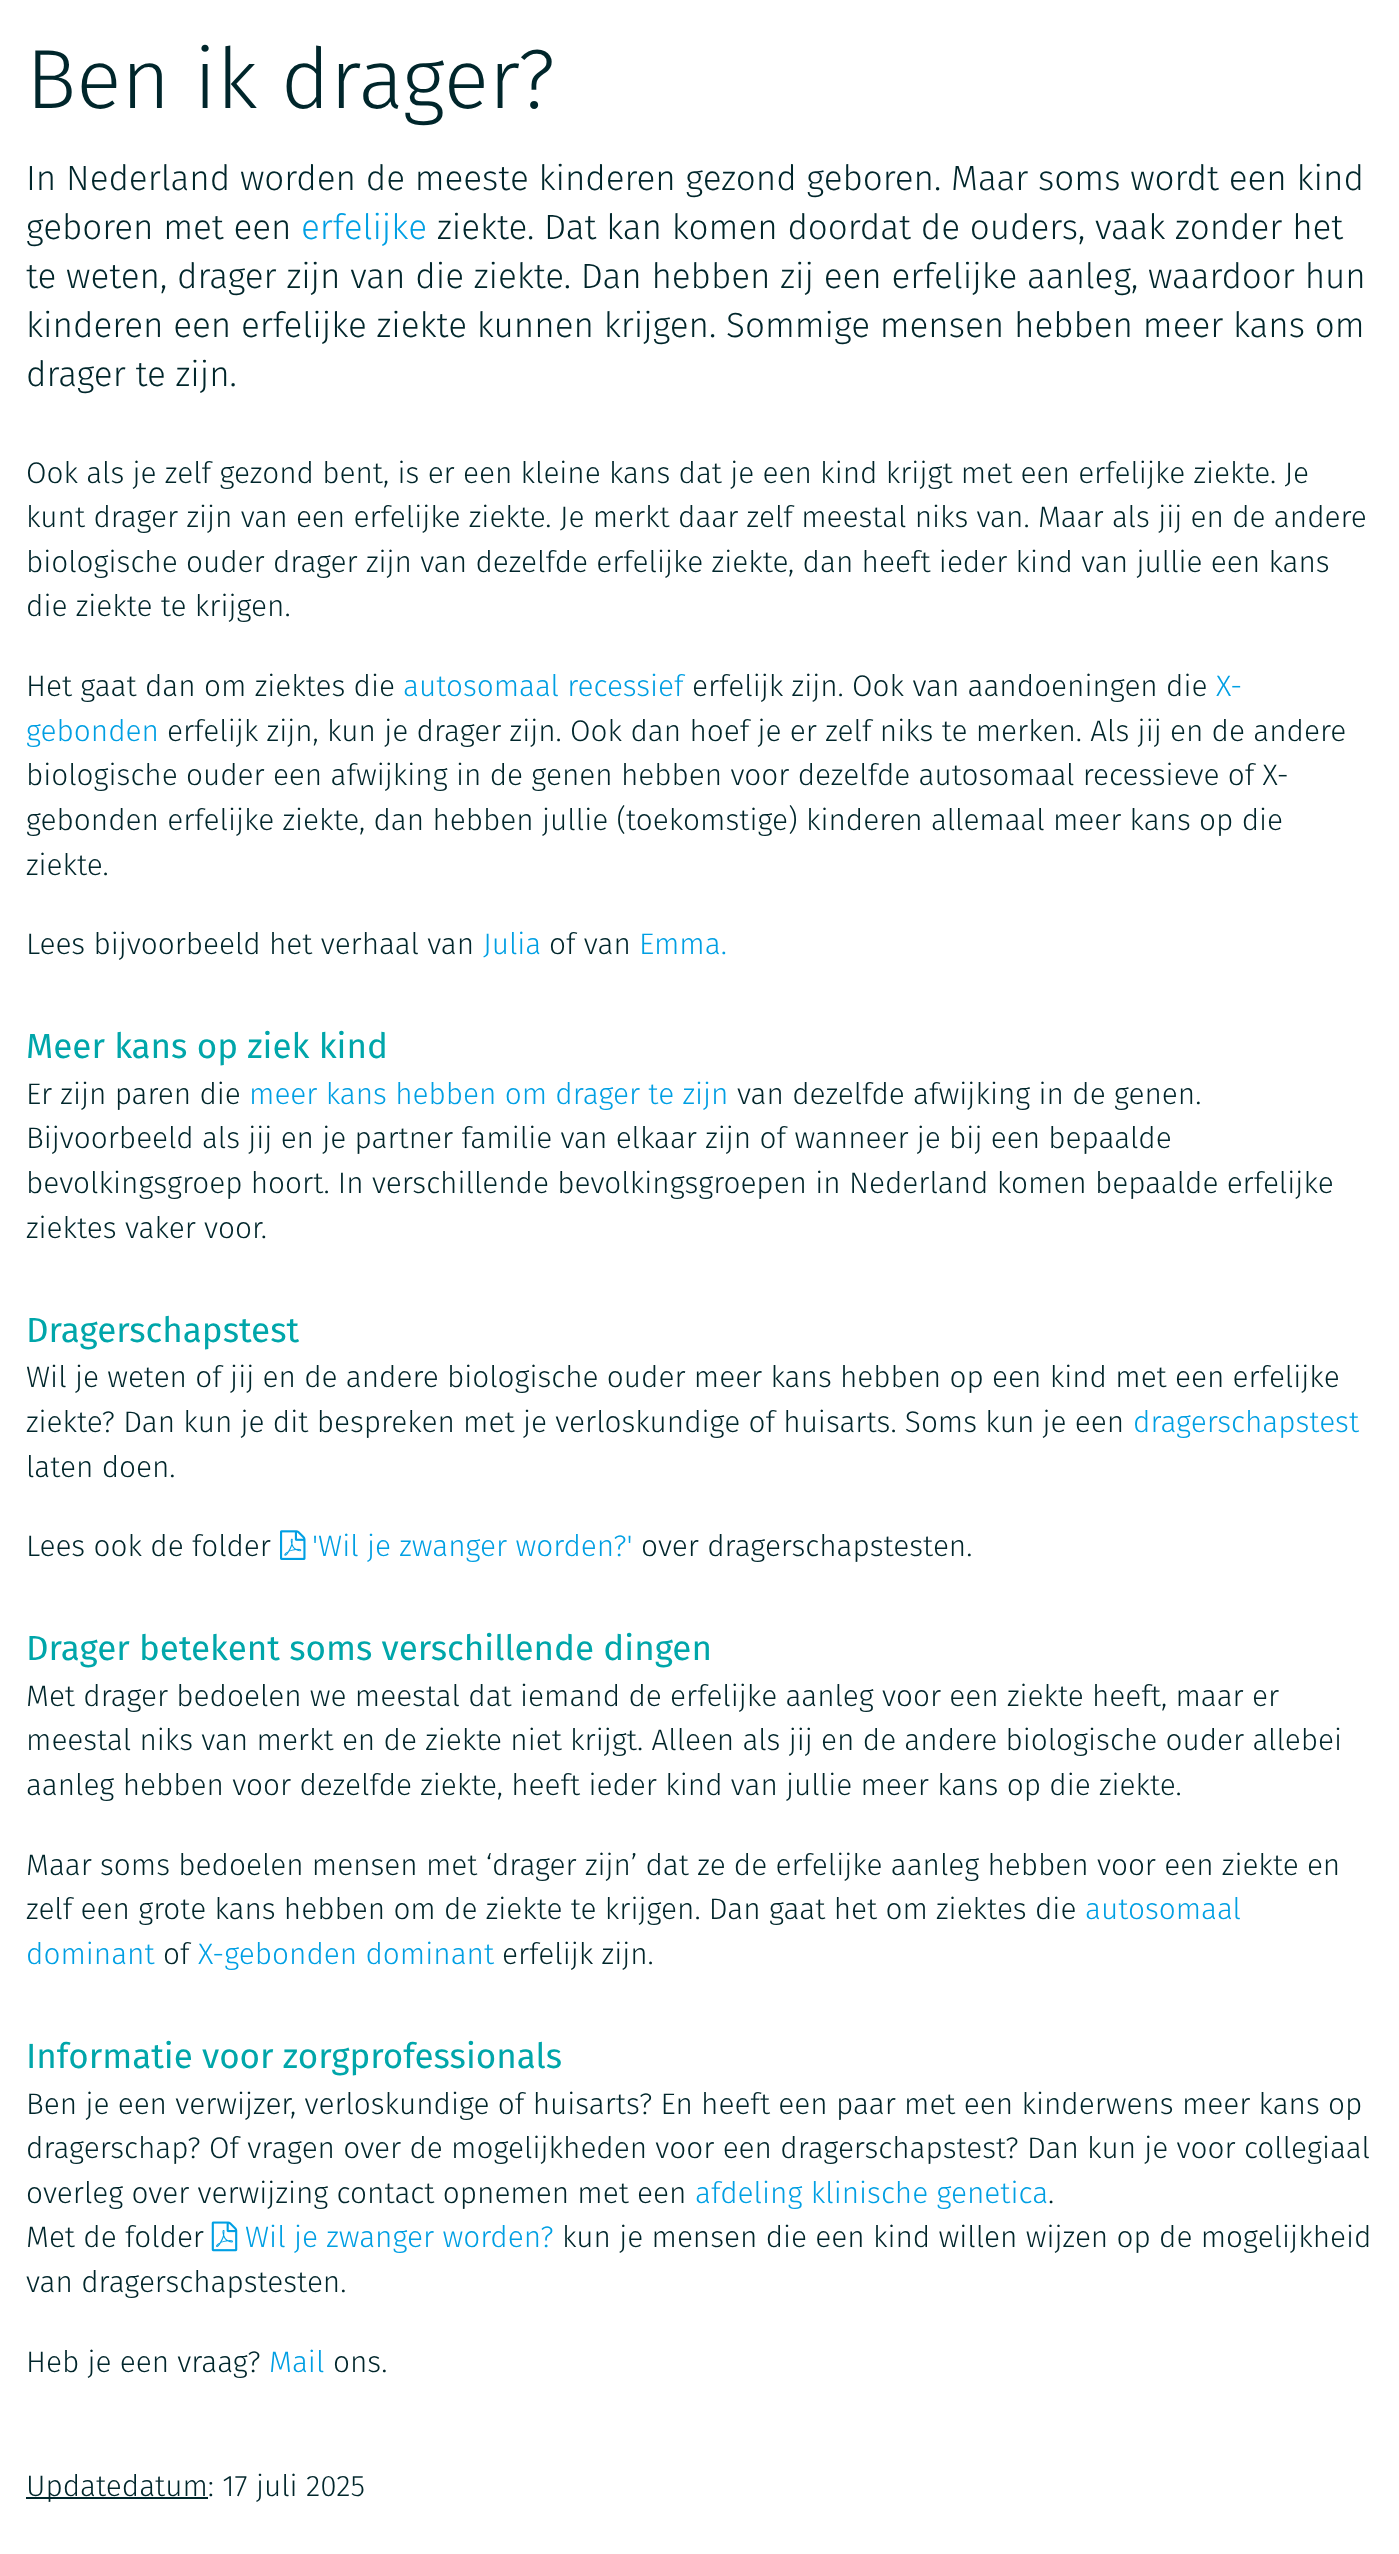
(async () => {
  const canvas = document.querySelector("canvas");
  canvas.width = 1399;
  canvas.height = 2554;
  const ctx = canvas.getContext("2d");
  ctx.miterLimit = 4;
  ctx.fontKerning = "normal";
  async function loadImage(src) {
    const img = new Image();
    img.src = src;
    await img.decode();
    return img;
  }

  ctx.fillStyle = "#ffffff";
  ctx.fillRect(0, 0, 1399, 2554);
  ctx.drawImage(await loadImage("img/1.png"), 280, 1530, 26, 30);
  ctx.drawImage(await loadImage("img/2.png"), 211, 2221, 27, 31);
  ctx.fillStyle = "#00262b";
  ctx.fillRect(26, 2497, 182, 2);
  ctx.font = "300 84px Fira Sans";
  ctx.fillText("Ben ik drager?", 26, 108);
  ctx.font = "300 35px Fira Sans";
  ctx.fillText("In Nederland worden de meeste kinderen gezond geboren. Maar soms wordt een kind", 26, 190);
  ctx.fillText("geboren met een", 26, 239);
  ctx.fillStyle = "#009fe3";
  ctx.fillText("erfelijke", 301, 239);
  ctx.fillStyle = "#00262b";
  for (const [text, x, y] of [
    ["ziekte. Dat kan komen doordat de ouders, vaak zonder het", 437, 239],
    ["te weten, drager zijn van die ziekte. Dan hebben zij een erfelijke aanleg, waardoor hun", 26, 288],
    ["kinderen een erfelijke ziekte kunnen krijgen. Sommige mensen hebben meer kans om", 26, 337],
    ["drager te zijn.", 26, 386],
  ]) {
    ctx.fillText(text, x, y);
  }
  ctx.font = "300 29.75px Fira Sans";
  for (const [text, x, y] of [
    ["Ook als je zelf gezond bent, is er een kleine kans dat je een kind krijgt met een erfelijke ziekte. Je", 26, 483],
    ["kunt drager zijn van een erfelijke ziekte. Je merkt daar zelf meestal niks van. Maar als jij en de andere", 26, 527],
    ["biologische ouder drager zijn van dezelfde erfelijke ziekte, dan heeft ieder kind van jullie een kans", 26, 572],
    ["die ziekte te krijgen.", 26, 616],
    ["Het gaat dan om ziektes die", 26, 696],
  ]) {
    ctx.fillText(text, x, y);
  }
  ctx.fillStyle = "#009fe3";
  ctx.fillText("autosomaal recessief", 403, 696);
  ctx.fillStyle = "#00262b";
  ctx.fillText("erfelijk zijn. Ook van aandoeningen die", 692, 696);
  ctx.fillStyle = "#009fe3";
  ctx.fillText("X-", 1216, 696);
  ctx.fillText("gebonden", 26, 741);
  ctx.fillStyle = "#00262b";
  for (const [text, x, y] of [
    ["erfelijk zijn, kun je drager zijn. Ook dan hoef je er zelf niks te merken. Als jij en de andere", 167, 741],
    ["biologische ouder een afwijking in de genen hebben voor dezelfde autosomaal recessieve of X-", 26, 785],
    ["gebonden erfelijke ziekte, dan hebben jullie (toekomstige) kinderen allemaal meer kans op die", 26, 830],
    ["ziekte.", 26, 875],
    ["Lees bijvoorbeeld het verhaal van", 26, 954],
  ]) {
    ctx.fillText(text, x, y);
  }
  ctx.fillStyle = "#009fe3";
  ctx.fillText("Julia", 483, 954);
  ctx.fillStyle = "#00262b";
  ctx.fillText("of van", 549, 954);
  ctx.fillStyle = "#009fe3";
  ctx.fillText("Emma.", 639, 954);
  ctx.font = "35px Fira Sans";
  ctx.fillStyle = "#00a6aa";
  ctx.fillText("Meer kans op ziek kind", 26, 1058);
  ctx.font = "300 29.75px Fira Sans";
  ctx.fillStyle = "#00262b";
  ctx.fillText("Er zijn paren die", 26, 1104);
  ctx.fillStyle = "#009fe3";
  ctx.fillText("meer kans hebben om drager te zijn", 249, 1104);
  ctx.fillStyle = "#00262b";
  for (const [text, x, y] of [
    ["van dezelfde afwijking in de genen.", 737, 1104],
    ["Bijvoorbeeld als jij en je partner familie van elkaar zijn of wanneer je bij een bepaalde", 26, 1148],
    ["bevolkingsgroep hoort. In verschillende bevolkingsgroepen in Nederland komen bepaalde erfelijke", 26, 1193],
    ["ziektes vaker voor.", 26, 1238],
  ]) {
    ctx.fillText(text, x, y);
  }
  ctx.font = "35px Fira Sans";
  ctx.fillStyle = "#00a6aa";
  ctx.fillText("Dragerschapstest", 26, 1342);
  ctx.font = "300 29.75px Fira Sans";
  ctx.fillStyle = "#00262b";
  ctx.fillText("Wil je weten of jij en de andere biologische ouder meer kans hebben op een kind met een erfelijke", 26, 1387);
  ctx.fillText("ziekte? Dan kun je dit bespreken met je verloskundige of huisarts. Soms kun je een", 26, 1432);
  ctx.fillStyle = "#009fe3";
  ctx.fillText("dragerschapstest", 1133, 1432);
  ctx.fillStyle = "#00262b";
  ctx.fillText("laten doen.", 26, 1477);
  ctx.fillText("Lees ook de folder", 26, 1556);
  ctx.fillStyle = "#009fe3";
  ctx.fillText("'Wil je zwanger worden?'", 312, 1556);
  ctx.fillStyle = "#00262b";
  ctx.fillText("over dragerschapstesten.", 641, 1556);
  ctx.font = "35px Fira Sans";
  ctx.fillStyle = "#00a6aa";
  ctx.fillText("Drager betekent soms verschillende dingen", 26, 1660);
  ctx.font = "300 29.75px Fira Sans";
  ctx.fillStyle = "#00262b";
  for (const [text, x, y] of [
    ["Met drager bedoelen we meestal dat iemand de erfelijke aanleg voor een ziekte heeft, maar er", 26, 1706],
    ["meestal niks van merkt en de ziekte niet krijgt. Alleen als jij en de andere biologische ouder allebei", 26, 1750],
    ["aanleg hebben voor dezelfde ziekte, heeft ieder kind van jullie meer kans op die ziekte.", 26, 1795],
    ["Maar soms bedoelen mensen met ‘drager zijn’ dat ze de erfelijke aanleg hebben voor een ziekte en", 26, 1875],
    ["zelf een grote kans hebben om de ziekte te krijgen. Dan gaat het om ziektes die", 26, 1919],
  ]) {
    ctx.fillText(text, x, y);
  }
  ctx.fillStyle = "#009fe3";
  ctx.fillText("autosomaal", 1085, 1919);
  ctx.fillText("dominant", 26, 1964);
  ctx.fillStyle = "#00262b";
  ctx.fillText("of", 163, 1964);
  ctx.fillStyle = "#009fe3";
  ctx.fillText("X-gebonden dominant", 198, 1964);
  ctx.fillStyle = "#00262b";
  ctx.fillText("erfelijk zijn.", 502, 1964);
  ctx.font = "35px Fira Sans";
  ctx.fillStyle = "#00a6aa";
  ctx.fillText("Informatie voor zorgprofessionals", 26, 2068);
  ctx.font = "300 29.75px Fira Sans";
  ctx.fillStyle = "#00262b";
  for (const [text, x, y] of [
    ["Ben je een verwijzer, verloskundige of huisarts? En heeft een paar met een kinderwens meer kans op", 26, 2114],
    ["dragerschap? Of vragen over de mogelijkheden voor een dragerschapstest? Dan kun je voor collegiaal", 26, 2158],
    ["overleg over verwijzing contact opnemen met een", 26, 2203],
  ]) {
    ctx.fillText(text, x, y);
  }
  ctx.fillStyle = "#009fe3";
  ctx.fillText("afdeling klinische genetica", 695, 2203);
  ctx.fillStyle = "#00262b";
  ctx.fillText(".", 1048, 2203);
  ctx.fillText("Met de folder", 26, 2247);
  ctx.fillStyle = "#009fe3";
  ctx.fillText("Wil je zwanger worden?", 245, 2247);
  ctx.fillStyle = "#00262b";
  for (const [text, x, y] of [
    ["kun je mensen die een kind willen wijzen op de mogelijkheid", 562, 2247],
    ["van dragerschapstesten.", 26, 2292],
    ["Heb je een vraag?", 26, 2372],
  ]) {
    ctx.fillText(text, x, y);
  }
  ctx.fillStyle = "#009fe3";
  ctx.fillText("Mail", 269, 2372);
  ctx.fillStyle = "#00262b";
  ctx.fillText("ons.", 333, 2372);
  ctx.fillText("Updatedatum: 17 juli 2025", 26, 2496);
})();
